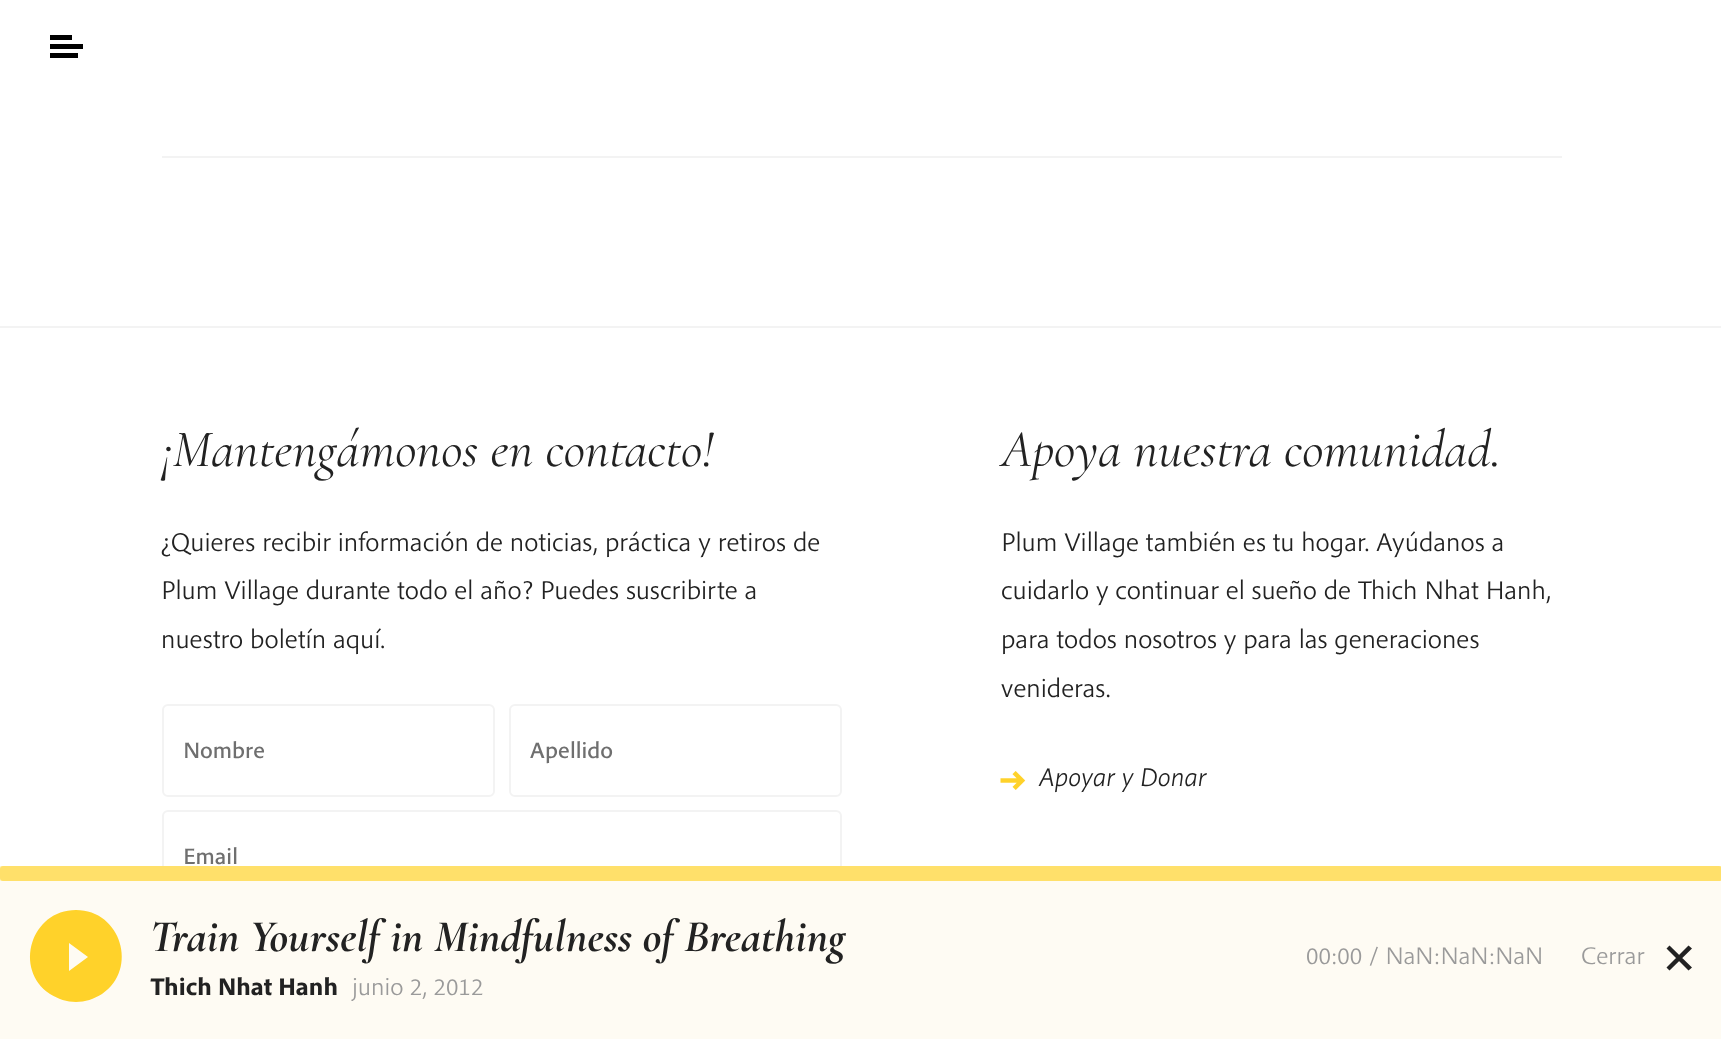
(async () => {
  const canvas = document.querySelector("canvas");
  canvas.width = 1721;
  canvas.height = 1039;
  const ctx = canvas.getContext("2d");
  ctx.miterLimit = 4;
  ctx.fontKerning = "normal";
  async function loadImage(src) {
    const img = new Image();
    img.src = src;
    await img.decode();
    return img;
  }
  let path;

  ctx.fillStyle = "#ffffff";
  ctx.fillRect(0, 0, 1721, 1039);
  for (const [x, y, w, h, color] of [
    [50, 44, 33, 5, "#000000"],
    [50, 35, 22, 5, "#000000"],
    [50, 53, 28, 5, "#000000"],
    [162, 156, 1400, 2, "#f3f3f3"],
    [0, 326, 1721, 2, "#f3f3f3"],
  ]) {
    ctx.fillStyle = color;
    ctx.fillRect(x, y, w, h);
  }
  ctx.beginPath();
  ctx.roundRect(163, 705, 331, 91, 5);
  ctx.strokeStyle = "#f3f3f3";
  ctx.lineWidth = 2;
  ctx.stroke();
  ctx.beginPath();
  ctx.roundRect(510, 705, 331, 91, 5);
  ctx.stroke();
  ctx.beginPath();
  ctx.roundRect(163, 811, 678, 90, 5);
  ctx.stroke();
  ctx.drawImage(await loadImage("img/1.png"), 1000, 771, 26, 19);
  ctx.fillStyle = "#fefbf3";
  ctx.fillRect(0, 881, 1721, 158);
  ctx.fillStyle = "#fff6d4";
  ctx.fillRect(0, 866, 1721, 15);
  ctx.fillStyle = "#ffe06a";
  ctx.beginPath();
  ctx.roundRect(0, 866, 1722, 15, 3);
  ctx.fill();
  ctx.fillStyle = "#ffd22a";
  path = new Path2D("M76 1002C67 1002 58 999 50 994C13 969 31 910 76 910C121 910 139 969 102 994C94 999 85 1002 76 1002ZM69 943V971L88 957Z");
  ctx.fill(path);
  ctx.fillStyle = "#222222";
  path = new Path2D("M1669.5 970.5L1666.5 967.5L1688.5 945.5L1692 948.5ZM1666.5 948.5L1669.5 945.5L1692 967.5L1688.5 970.5Z");
  ctx.fill(path);
  ctx.font = "italic 52.75px Cormorant Garamond";
  ctx.fillText("¡Mantengámonos en contacto!", 161, 466);
  ctx.font = "300 27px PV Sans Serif";
  for (const [text, x, y] of [
    ["¿Quieres recibir información de noticias, práctica y retiros de", 161, 551],
    ["Plum Village durante todo el año? Puedes suscribirte a", 161, 599],
    ["nuestro boletín aquí.", 161, 648],
  ]) {
    ctx.fillText(text, x, y);
  }
  ctx.font = "500 23.5px PV Sans Serif";
  ctx.fillStyle = "#6f6f6f";
  for (const [text, x, y] of [
    ["Nombre", 183, 758],
    ["Apellido", 530, 758],
    ["Email", 183, 864],
  ]) {
    ctx.fillText(text, x, y);
  }
  ctx.font = "italic 52.75px Cormorant Garamond";
  ctx.fillStyle = "#222222";
  ctx.fillText("Apoya nuestra comunidad.", 1001, 466);
  ctx.font = "300 27px PV Sans Serif";
  for (const [text, x, y] of [
    ["Plum Village también es tu hogar. Ayúdanos a", 1001, 551],
    ["cuidarlo y continuar el sueño de Thich Nhat Hanh,", 1001, 599],
    ["para todos nosotros y para las generaciones", 1001, 648],
    ["venideras.", 1001, 697],
  ]) {
    ctx.fillText(text, x, y);
  }
  ctx.font = "italic 300 27px PV Sans Serif";
  ctx.fillText("Apoyar y Donar", 1039, 786);
  ctx.font = "italic bold 45.4px Cormorant Garamond";
  ctx.fillText("Train Yourself in Mindfulness of Breathing", 150, 951);
  ctx.font = "bold 25.25px PV Sans Serif";
  ctx.fillText("Thich Nhat Hanh", 150, 995);
  ctx.font = "300 25.25px PV Sans Serif";
  ctx.fillStyle = "#9a9a9a";
  for (const [text, x, y] of [
    ["junio 2, 2012", 352, 995],
    ["00:00 / NaN:NaN:NaN", 1306, 964],
    ["Cerrar", 1581, 964],
  ]) {
    ctx.fillText(text, x, y);
  }
})();
